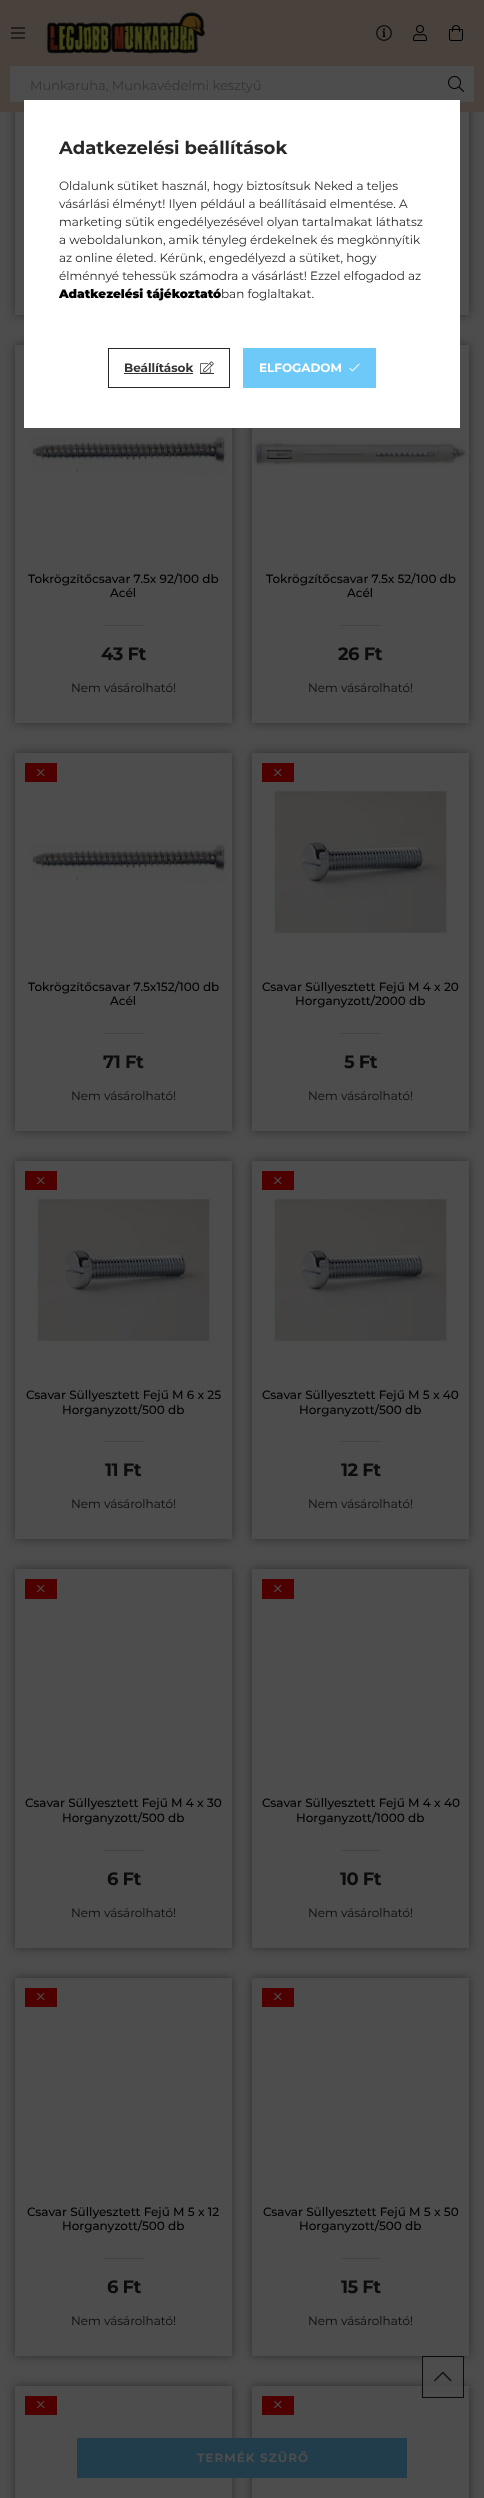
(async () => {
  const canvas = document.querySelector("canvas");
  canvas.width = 484;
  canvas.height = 2498;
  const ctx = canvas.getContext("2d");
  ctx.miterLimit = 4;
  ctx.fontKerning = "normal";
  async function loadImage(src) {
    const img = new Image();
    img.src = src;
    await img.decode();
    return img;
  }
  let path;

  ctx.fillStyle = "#4d4d4d";
  ctx.fillRect(0, 0, 484, 2498);
  ctx.save();
  path = new Path2D("M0 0H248V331H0ZM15-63H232V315H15Z");
  ctx.clip(path, "evenodd");
  ctx.fillStyle = "#2e2e2e";
  ctx.filter = "blur(5px)";
  ctx.beginPath();
  ctx.rect(15, -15, 217, 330);
  ctx.fill();
  ctx.filter = "none";
  ctx.restore();
  ctx.save();
  path = new Path2D("M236 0H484V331H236ZM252-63H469V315H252Z");
  ctx.clip(path, "evenodd");
  ctx.fillStyle = "#2e2e2e";
  ctx.filter = "blur(5px)";
  ctx.beginPath();
  ctx.rect(252, -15, 217, 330);
  ctx.fill();
  ctx.filter = "none";
  ctx.restore();
  ctx.fillStyle = "#48413c";
  ctx.fillRect(0, 0, 484, 112);
  ctx.drawImage(await loadImage("img/1.png"), 11, 27, 14, 12);
  ctx.drawImage(await loadImage("img/2.png"), 46, 12, 160, 42);
  ctx.drawImage(await loadImage("img/3.png"), 376, 25, 16, 16);
  ctx.drawImage(await loadImage("img/4.png"), 413, 25, 14, 16);
  ctx.drawImage(await loadImage("img/5.png"), 449, 25, 14, 16);
  ctx.fillStyle = "#4d4d4d";
  ctx.fillRect(10, 66, 464, 36);
  ctx.drawImage(await loadImage("img/6.png"), 448, 76, 16, 16);
  ctx.save();
  path = new Path2D("M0 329H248V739H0ZM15 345H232V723H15Z");
  ctx.clip(path, "evenodd");
  ctx.fillStyle = "#2e2e2e";
  ctx.filter = "blur(5px)";
  ctx.beginPath();
  ctx.rect(15, 345, 217, 378);
  ctx.fill();
  ctx.filter = "none";
  ctx.restore();
  ctx.drawImage(await loadImage("img/7.png"), 30, 436, 197, 38);
  ctx.fillStyle = "#424242";
  ctx.fillRect(104, 625, 40, 1);
  ctx.save();
  path = new Path2D("M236 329H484V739H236ZM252 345H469V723H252Z");
  ctx.clip(path, "evenodd");
  ctx.fillStyle = "#2e2e2e";
  ctx.filter = "blur(5px)";
  ctx.beginPath();
  ctx.rect(252, 345, 217, 378);
  ctx.fill();
  ctx.filter = "none";
  ctx.restore();
  ctx.drawImage(await loadImage("img/8.png"), 254, 440, 213, 26);
  ctx.fillRect(341, 625, 40, 1);
  ctx.save();
  path = new Path2D("M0 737H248V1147H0ZM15 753H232V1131H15Z");
  ctx.clip(path, "evenodd");
  ctx.fillStyle = "#2e2e2e";
  ctx.filter = "blur(5px)";
  ctx.beginPath();
  ctx.rect(15, 753, 217, 378);
  ctx.fill();
  ctx.filter = "none";
  ctx.restore();
  ctx.fillStyle = "#4d0000";
  ctx.fillRect(25, 763, 32, 19);
  ctx.drawImage(await loadImage("img/9.png"), 37, 768, 8, 9);
  ctx.drawImage(await loadImage("img/7.png"), 30, 844, 197, 38);
  ctx.fillStyle = "#424242";
  ctx.fillRect(104, 1033, 40, 1);
  ctx.save();
  path = new Path2D("M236 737H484V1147H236ZM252 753H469V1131H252Z");
  ctx.clip(path, "evenodd");
  ctx.fillStyle = "#2e2e2e";
  ctx.filter = "blur(5px)";
  ctx.beginPath();
  ctx.rect(252, 753, 217, 378);
  ctx.fill();
  ctx.filter = "none";
  ctx.restore();
  ctx.fillStyle = "#4d0000";
  ctx.fillRect(262, 763, 32, 19);
  ctx.drawImage(await loadImage("img/9.png"), 274, 768, 8, 9);
  ctx.drawImage(await loadImage("img/10.png"), 274, 790, 175, 145);
  ctx.fillStyle = "#424242";
  ctx.fillRect(341, 1033, 40, 1);
  ctx.save();
  path = new Path2D("M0 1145H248V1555H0ZM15 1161H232V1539H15Z");
  ctx.clip(path, "evenodd");
  ctx.fillStyle = "#2e2e2e";
  ctx.filter = "blur(5px)";
  ctx.beginPath();
  ctx.rect(15, 1161, 217, 378);
  ctx.fill();
  ctx.filter = "none";
  ctx.restore();
  ctx.fillStyle = "#4d0000";
  ctx.fillRect(25, 1171, 32, 19);
  ctx.drawImage(await loadImage("img/9.png"), 37, 1176, 8, 9);
  ctx.drawImage(await loadImage("img/11.png"), 37, 1198, 175, 145);
  ctx.fillStyle = "#424242";
  ctx.fillRect(104, 1441, 40, 1);
  ctx.save();
  path = new Path2D("M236 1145H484V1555H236ZM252 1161H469V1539H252Z");
  ctx.clip(path, "evenodd");
  ctx.fillStyle = "#2e2e2e";
  ctx.filter = "blur(5px)";
  ctx.beginPath();
  ctx.rect(252, 1161, 217, 378);
  ctx.fill();
  ctx.filter = "none";
  ctx.restore();
  ctx.fillStyle = "#4d0000";
  ctx.fillRect(262, 1171, 32, 19);
  ctx.drawImage(await loadImage("img/9.png"), 274, 1176, 8, 9);
  ctx.drawImage(await loadImage("img/10.png"), 274, 1198, 175, 145);
  ctx.fillStyle = "#424242";
  ctx.fillRect(341, 1441, 40, 1);
  ctx.save();
  path = new Path2D("M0 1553H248V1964H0ZM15 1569H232V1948H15Z");
  ctx.clip(path, "evenodd");
  ctx.fillStyle = "#2e2e2e";
  ctx.filter = "blur(5px)";
  ctx.beginPath();
  ctx.rect(15, 1569, 217, 379);
  ctx.fill();
  ctx.filter = "none";
  ctx.restore();
  ctx.fillStyle = "#4d0000";
  ctx.fillRect(25, 1579, 32, 20);
  ctx.drawImage(await loadImage("img/9.png"), 37, 1584, 8, 9);
  ctx.fillStyle = "#424242";
  ctx.fillRect(104, 1850, 40, 1);
  ctx.save();
  path = new Path2D("M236 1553H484V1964H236ZM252 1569H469V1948H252Z");
  ctx.clip(path, "evenodd");
  ctx.fillStyle = "#2e2e2e";
  ctx.filter = "blur(5px)";
  ctx.beginPath();
  ctx.rect(252, 1569, 217, 379);
  ctx.fill();
  ctx.filter = "none";
  ctx.restore();
  ctx.fillStyle = "#4d0000";
  ctx.fillRect(262, 1579, 32, 20);
  ctx.drawImage(await loadImage("img/9.png"), 274, 1584, 8, 9);
  ctx.fillStyle = "#424242";
  ctx.fillRect(341, 1850, 40, 1);
  ctx.save();
  path = new Path2D("M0 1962H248V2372H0ZM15 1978H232V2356H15Z");
  ctx.clip(path, "evenodd");
  ctx.fillStyle = "#2e2e2e";
  ctx.filter = "blur(5px)";
  ctx.beginPath();
  ctx.rect(15, 1978, 217, 378);
  ctx.fill();
  ctx.filter = "none";
  ctx.restore();
  ctx.fillStyle = "#4d0000";
  ctx.fillRect(25, 1988, 32, 19);
  ctx.drawImage(await loadImage("img/9.png"), 37, 1992, 8, 9);
  ctx.fillStyle = "#424242";
  ctx.fillRect(104, 2258, 40, 1);
  ctx.save();
  path = new Path2D("M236 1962H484V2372H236ZM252 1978H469V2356H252Z");
  ctx.clip(path, "evenodd");
  ctx.fillStyle = "#2e2e2e";
  ctx.filter = "blur(5px)";
  ctx.beginPath();
  ctx.rect(252, 1978, 217, 378);
  ctx.fill();
  ctx.filter = "none";
  ctx.restore();
  ctx.fillStyle = "#4d0000";
  ctx.fillRect(262, 1988, 32, 19);
  ctx.drawImage(await loadImage("img/9.png"), 274, 1992, 8, 9);
  ctx.fillStyle = "#424242";
  ctx.fillRect(341, 2258, 40, 1);
  ctx.save();
  path = new Path2D("M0 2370H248V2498H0ZM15 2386H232V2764H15Z");
  ctx.clip(path, "evenodd");
  ctx.fillStyle = "#2e2e2e";
  ctx.filter = "blur(5px)";
  ctx.beginPath();
  ctx.rect(15, 2386, 217, 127);
  ctx.fill();
  ctx.filter = "none";
  ctx.restore();
  ctx.fillStyle = "#4d0000";
  ctx.fillRect(25, 2396, 32, 19);
  ctx.drawImage(await loadImage("img/9.png"), 37, 2400, 8, 9);
  ctx.save();
  path = new Path2D("M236 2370H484V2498H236ZM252 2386H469V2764H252Z");
  ctx.clip(path, "evenodd");
  ctx.fillStyle = "#2e2e2e";
  ctx.filter = "blur(5px)";
  ctx.beginPath();
  ctx.rect(252, 2386, 217, 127);
  ctx.fill();
  ctx.filter = "none";
  ctx.restore();
  ctx.fillRect(262, 2396, 32, 19);
  ctx.drawImage(await loadImage("img/9.png"), 274, 2400, 8, 9);
  ctx.fillStyle = "#213c4a";
  ctx.fillRect(77, 2438, 330, 40);
  ctx.fillStyle = "#ffffff";
  ctx.fillRect(24, 100, 436, 328);
  ctx.strokeStyle = "#282828";
  ctx.strokeRect(108.5, 348.5, 121, 39);
  ctx.fillStyle = "#333333";
  ctx.fillRect(124, 373, 69, 1);
  ctx.drawImage(await loadImage("img/12.png"), 200, 361, 14, 12);
  ctx.fillRect(200, 373, 14, 1);
  ctx.fillStyle = "#6dc9f7";
  ctx.fillRect(243, 348, 133, 40);
  ctx.drawImage(await loadImage("img/13.png"), 349, 363, 11, 9);
  ctx.fillStyle = "rgba(77, 77, 77, 0.8)";
  ctx.fillRect(423, 2357, 40, 29);
  ctx.strokeStyle = "#0c0c0c";
  ctx.strokeRect(422.5, 2356.5, 41, 41);
  ctx.drawImage(await loadImage("img/14.png"), 434, 2371, 18, 11);
  ctx.font = "13px Montserrat";
  ctx.fillStyle = "#333333";
  ctx.fillText("Munkaruha, Munkavédelmi kesztyű", 30, 90);
  ctx.font = "500 12px Montserrat";
  ctx.fillStyle = "#000000";
  ctx.fillText("Tokrögzítőcsavar 7.5x 92/100 db", 28, 583);
  ctx.fillText("Acél", 110, 597);
  ctx.letterSpacing = "-0.5px";
  ctx.font = "bold 18px Montserrat";
  ctx.fillStyle = "#0c0c0c";
  ctx.fillText("43 Ft", 101, 660);
  ctx.letterSpacing = "0px";
  ctx.font = "12px Montserrat";
  ctx.fillText("Nem vásárolható!", 71, 692);
  ctx.font = "500 12px Montserrat";
  ctx.fillStyle = "#000000";
  ctx.fillText("Tokrögzítőcsavar 7.5x 52/100 db", 266, 583);
  ctx.fillText("Acél", 347, 597);
  ctx.letterSpacing = "-0.5px";
  ctx.font = "bold 18px Montserrat";
  ctx.fillStyle = "#0c0c0c";
  ctx.fillText("26 Ft", 338, 660);
  ctx.letterSpacing = "0px";
  ctx.font = "12px Montserrat";
  ctx.fillText("Nem vásárolható!", 308, 692);
  ctx.font = "500 12px Montserrat";
  ctx.fillStyle = "#000000";
  ctx.fillText("Tokrögzítőcsavar 7.5x152/100 db", 28, 991);
  ctx.fillText("Acél", 110, 1005);
  ctx.letterSpacing = "-0.5px";
  ctx.font = "bold 18px Montserrat";
  ctx.fillStyle = "#0c0c0c";
  ctx.fillText("71 Ft", 103, 1068);
  ctx.letterSpacing = "0px";
  ctx.font = "12px Montserrat";
  ctx.fillText("Nem vásárolható!", 71, 1100);
  ctx.font = "500 12px Montserrat";
  ctx.fillStyle = "#000000";
  ctx.fillText("Csavar Süllyesztett Fejű M 4 x 20", 262, 991);
  ctx.fillText("Horganyzott/2000 db", 295, 1005);
  ctx.letterSpacing = "-0.5px";
  ctx.font = "bold 18px Montserrat";
  ctx.fillStyle = "#0c0c0c";
  ctx.fillText("5 Ft", 344, 1068);
  ctx.letterSpacing = "0px";
  ctx.font = "12px Montserrat";
  ctx.fillText("Nem vásárolható!", 308, 1100);
  ctx.font = "500 12px Montserrat";
  ctx.fillStyle = "#000000";
  ctx.fillText("Csavar Süllyesztett Fejű M 6 x 25", 26, 1399);
  ctx.fillText("Horganyzott/500 db", 62, 1414);
  ctx.letterSpacing = "-0.5px";
  ctx.font = "bold 18px Montserrat";
  ctx.fillStyle = "#0c0c0c";
  ctx.fillText("11 Ft", 105, 1476);
  ctx.letterSpacing = "0px";
  ctx.font = "12px Montserrat";
  ctx.fillText("Nem vásárolható!", 71, 1508);
  ctx.font = "500 12px Montserrat";
  ctx.fillStyle = "#000000";
  ctx.fillText("Csavar Süllyesztett Fejű M 5 x 40", 262, 1399);
  ctx.fillText("Horganyzott/500 db", 299, 1414);
  ctx.letterSpacing = "-0.5px";
  ctx.font = "bold 18px Montserrat";
  ctx.fillStyle = "#0c0c0c";
  ctx.fillText("12 Ft", 341, 1476);
  ctx.letterSpacing = "0px";
  ctx.font = "12px Montserrat";
  ctx.fillText("Nem vásárolható!", 308, 1508);
  ctx.font = "500 12px Montserrat";
  ctx.fillStyle = "#000000";
  ctx.fillText("Csavar Süllyesztett Fejű M 4 x 30", 25, 1807);
  ctx.fillText("Horganyzott/500 db", 62, 1822);
  ctx.letterSpacing = "-0.5px";
  ctx.font = "bold 18px Montserrat";
  ctx.fillStyle = "#0c0c0c";
  ctx.fillText("6 Ft", 107, 1885);
  ctx.letterSpacing = "0px";
  ctx.font = "12px Montserrat";
  ctx.fillText("Nem vásárolható!", 71, 1917);
  ctx.font = "500 12px Montserrat";
  ctx.fillStyle = "#000000";
  ctx.fillText("Csavar Süllyesztett Fejű M 4 x 40", 262, 1807);
  ctx.fillText("Horganyzott/1000 db", 296, 1822);
  ctx.letterSpacing = "-0.5px";
  ctx.font = "bold 18px Montserrat";
  ctx.fillStyle = "#0c0c0c";
  ctx.fillText("10 Ft", 340, 1885);
  ctx.letterSpacing = "0px";
  ctx.font = "12px Montserrat";
  ctx.fillText("Nem vásárolható!", 308, 1917);
  ctx.font = "500 12px Montserrat";
  ctx.fillStyle = "#000000";
  ctx.fillText("Csavar Süllyesztett Fejű M 5 x 12", 27, 2216);
  ctx.fillText("Horganyzott/500 db", 62, 2230);
  ctx.letterSpacing = "-0.5px";
  ctx.font = "bold 18px Montserrat";
  ctx.fillStyle = "#0c0c0c";
  ctx.fillText("6 Ft", 107, 2293);
  ctx.letterSpacing = "0px";
  ctx.font = "12px Montserrat";
  ctx.fillText("Nem vásárolható!", 71, 2325);
  ctx.font = "500 12px Montserrat";
  ctx.fillStyle = "#000000";
  ctx.fillText("Csavar Süllyesztett Fejű M 5 x 50", 263, 2216);
  ctx.fillText("Horganyzott/500 db", 299, 2230);
  ctx.letterSpacing = "-0.5px";
  ctx.font = "bold 18px Montserrat";
  ctx.fillStyle = "#0c0c0c";
  ctx.fillText("15 Ft", 341, 2293);
  ctx.letterSpacing = "0px";
  ctx.font = "12px Montserrat";
  ctx.fillText("Nem vásárolható!", 308, 2325);
  ctx.letterSpacing = "1px";
  ctx.font = "bold 12px Montserrat";
  ctx.fillStyle = "#4d4d4d";
  ctx.fillText("TERMÉK SZŰRŐ", 197, 2462);
  ctx.letterSpacing = "0px";
  ctx.font = "bold 18px Montserrat";
  ctx.fillStyle = "#282828";
  ctx.fillText("Adatkezelési beállítások", 59, 154);
  ctx.font = "12px Montserrat";
  for (const [text, x, y] of [
    ["Oldalunk sütiket használ, hogy biztosítsuk Neked a teljes", 59, 190],
    ["vásárlási élményt! Ilyen például a beállításaid elmentése. A", 59, 208],
    ["marketing sütik engedélyezésével olyan tartalmakat láthatsz", 59, 226],
    ["a weboldalunkon, amik tényleg érdekelnek és megkönnyítik", 59, 244],
    ["az online életed. Kérünk, engedélyezd a sütiket, hogy", 59, 262],
    ["élménnyé tehessük számodra a vásárlást! Ezzel elfogadod az", 59, 280],
  ]) {
    ctx.fillText(text, x, y);
  }
  ctx.font = "900 12px Montserrat";
  ctx.fillStyle = "#000000";
  ctx.fillText("Adatkezelési tájékoztató", 59, 298);
  ctx.font = "12px Montserrat";
  ctx.fillStyle = "#282828";
  ctx.fillText("ban foglaltakat.", 221, 298);
  ctx.font = "bold 12px Montserrat";
  ctx.fillStyle = "#333333";
  ctx.fillText("Beállítások", 124, 372);
  ctx.fillStyle = "#ffffff";
  ctx.fillText("ELFOGADOM", 259, 372);
})();
